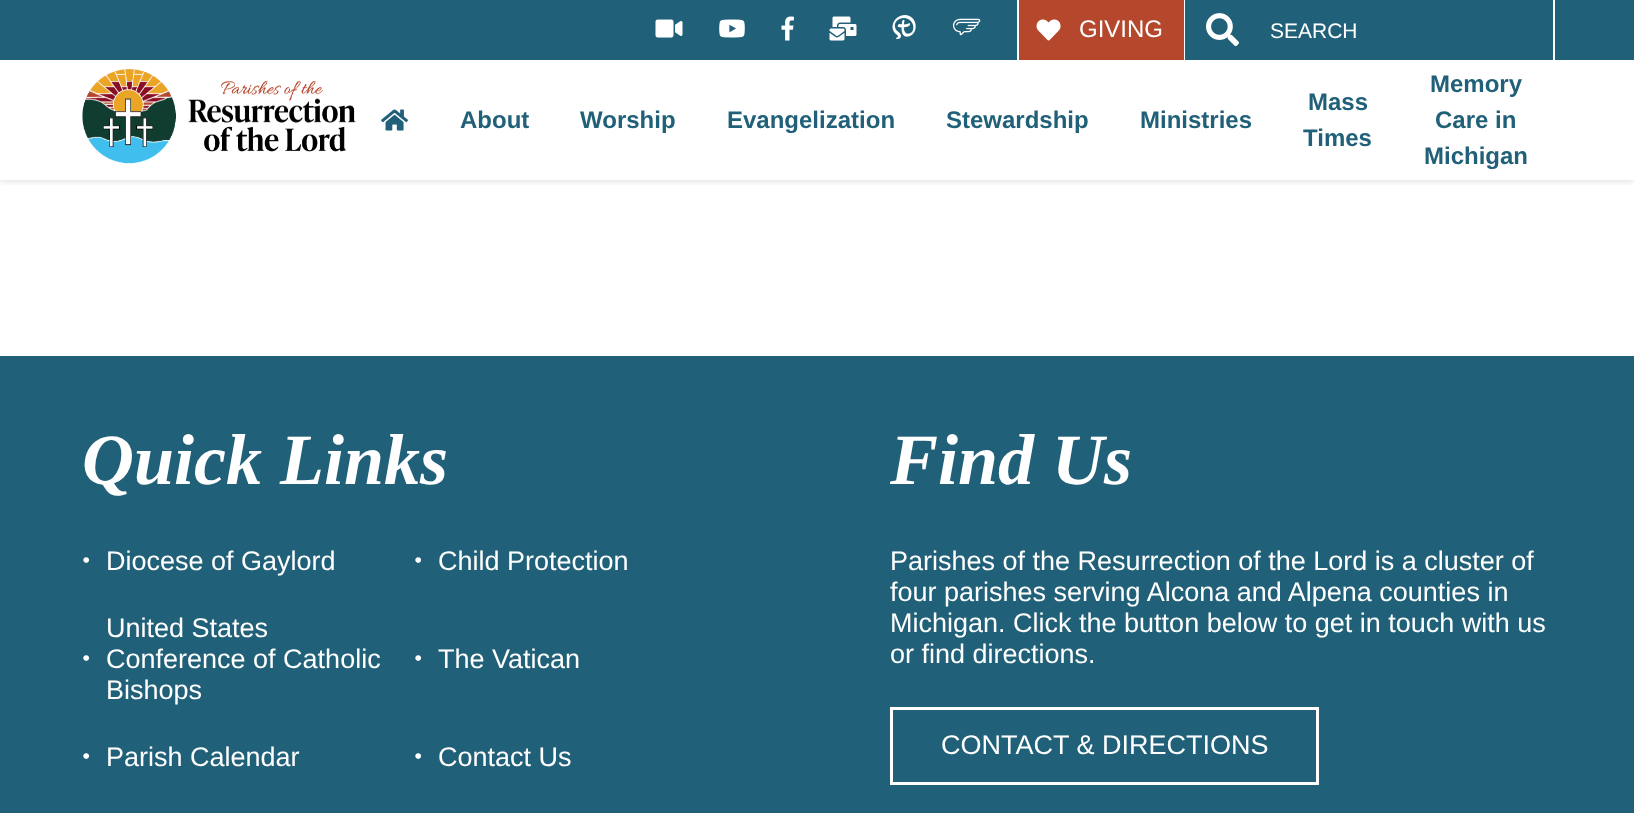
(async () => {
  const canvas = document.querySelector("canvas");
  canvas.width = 1634;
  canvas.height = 813;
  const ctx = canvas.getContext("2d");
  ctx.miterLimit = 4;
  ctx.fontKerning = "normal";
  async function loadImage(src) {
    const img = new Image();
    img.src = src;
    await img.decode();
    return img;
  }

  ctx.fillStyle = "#ffffff";
  ctx.fillRect(0, 0, 1634, 813);
  ctx.save();
  ctx.beginPath();
  ctx.rect(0, 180, 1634, 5);
  ctx.clip();
  ctx.fillStyle = "rgba(0, 0, 0, 0.16)";
  ctx.filter = "blur(4.5px)";
  ctx.beginPath();
  ctx.rect(0, 0, 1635, 180);
  ctx.fill();
  ctx.filter = "none";
  ctx.restore();
  ctx.fillStyle = "#206078";
  ctx.fillRect(0, 0, 1634, 60);
  ctx.drawImage(await loadImage("img/1.png"), 655, 19, 28, 19);
  ctx.drawImage(await loadImage("img/2.png"), 719, 19, 26, 19);
  ctx.drawImage(await loadImage("img/3.png"), 781, 16, 13, 25);
  ctx.drawImage(await loadImage("img/4.png"), 829, 16, 28, 25);
  ctx.drawImage(await loadImage("img/5.png"), 892, 15, 24, 24);
  ctx.drawImage(await loadImage("img/6.png"), 952, 18, 29, 18);
  for (const [x, y, w, h, color] of [
    [1019, 0, 165, 60, "#b5482c"],
    [1184, 0, 1, 60, "#ffffff"],
    [1017, 0, 2, 60, "#ffffff"],
  ]) {
    ctx.fillStyle = color;
    ctx.fillRect(x, y, w, h);
  }
  ctx.drawImage(await loadImage("img/7.png"), 1036, 19, 25, 22);
  ctx.fillRect(1553, 0, 2, 60);
  ctx.drawImage(await loadImage("img/8.png"), 1206, 13, 33, 34);
  ctx.drawImage(await loadImage("img/9.png"), 82, 69, 274, 95);
  ctx.drawImage(await loadImage("img/10.png"), 381, 109, 27, 22);
  ctx.fillStyle = "#206078";
  ctx.fillRect(0, 356, 1634, 457);
  ctx.strokeStyle = "#ffffff";
  ctx.lineWidth = 3;
  ctx.strokeRect(891.5, 708.5, 426, 75);
  ctx.font = "24px Liberation Sans";
  ctx.fillStyle = "#ffffff";
  ctx.fillText("GIVING", 1079, 37);
  ctx.font = "21px Liberation Sans";
  ctx.fillText("SEARCH", 1270, 38);
  ctx.font = "bold 24px Liberation Sans";
  ctx.fillStyle = "#206078";
  for (const [text, x, y] of [
    ["About", 460, 128],
    ["Worship", 580, 128],
    ["Evangelization", 727, 128],
    ["Stewardship", 946, 128],
    ["Ministries", 1140, 128],
    ["Mass", 1308, 110],
    ["Times", 1303, 146],
    ["Memory", 1430, 92],
    ["Care in", 1435, 128],
    ["Michigan", 1424, 164],
  ]) {
    ctx.fillText(text, x, y);
  }
  ctx.font = "italic bold 72px Liberation Serif";
  ctx.fillStyle = "#ffffff";
  ctx.fillText("Quick Links", 82, 484);
  ctx.font = "24px Liberation Serif";
  ctx.fillText("•", 82, 568);
  ctx.font = "27px Liberation Sans";
  ctx.fillText("Diocese of Gaylord", 106, 570);
  ctx.font = "24px Liberation Serif";
  ctx.fillText("•", 414, 568);
  ctx.font = "27px Liberation Sans";
  ctx.fillText("Child Protection", 438, 570);
  ctx.font = "24px Liberation Serif";
  ctx.fillText("•", 82, 666);
  ctx.font = "27px Liberation Sans";
  for (const [text, x, y] of [
    ["United States", 106, 637],
    ["Conference of Catholic", 106, 668],
    ["Bishops", 106, 699],
  ]) {
    ctx.fillText(text, x, y);
  }
  ctx.font = "24px Liberation Serif";
  ctx.fillText("•", 414, 666);
  ctx.font = "27px Liberation Sans";
  ctx.fillText("The Vatican", 438, 668);
  ctx.font = "24px Liberation Serif";
  ctx.fillText("•", 82, 764);
  ctx.font = "27px Liberation Sans";
  ctx.fillText("Parish Calendar", 106, 766);
  ctx.font = "24px Liberation Serif";
  ctx.fillText("•", 414, 764);
  ctx.font = "27px Liberation Sans";
  ctx.fillText("Contact Us", 438, 766);
  ctx.font = "italic bold 72px Liberation Serif";
  ctx.fillText("Find Us", 890, 484);
  ctx.font = "27px Liberation Sans";
  for (const [text, x, y] of [
    ["Parishes of the Resurrection of the Lord is a cluster of", 890, 570],
    ["four parishes serving Alcona and Alpena counties in", 890, 601],
    ["Michigan. Click the button below to get in touch with us", 890, 632],
    ["or find directions.", 890, 663],
    ["CONTACT & DIRECTIONS", 941, 754],
  ]) {
    ctx.fillText(text, x, y);
  }
})();
